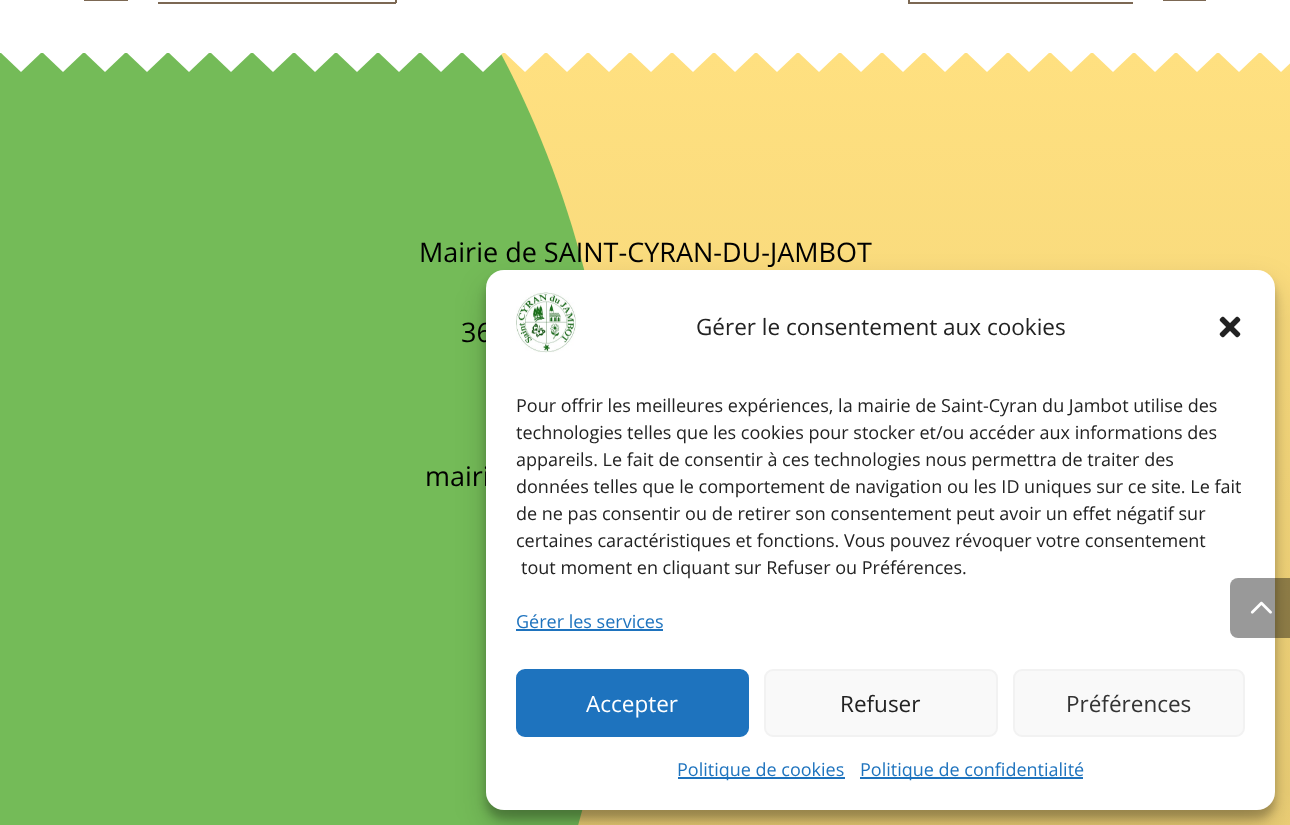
(async () => {
  const canvas = document.querySelector("canvas");
  canvas.width = 1290;
  canvas.height = 825;
  const ctx = canvas.getContext("2d");
  ctx.miterLimit = 4;
  ctx.fontKerning = "normal";
  async function loadImage(src) {
    const img = new Image();
    img.src = src;
    await img.decode();
    return img;
  }
  let gradient, path;

  ctx.fillStyle = "#ffffff";
  ctx.fillRect(0, 0, 1290, 825);
  for (const [x, y, w, h, color] of [
    [84, 0, 44, 1, "#7c6853"],
    [395, 0, 2, 3, "#7c6853"],
    [158, 2, 238, 2, "#7c6853"],
    [908, 2, 225, 2, "#7c6853"],
    [908, 0, 2, 3, "#7c6853"],
    [1163, 0, 43, 1, "#7c6853"],
  ]) {
    ctx.fillStyle = color;
    ctx.fillRect(x, y, w, h);
  }
  gradient = ctx.createLinearGradient(645, 53, 645, 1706);
  gradient.addColorStop(0, "#ffe080");
  gradient.addColorStop(1, "#d7bc6b");
  ctx.fillStyle = gradient;
  ctx.fillRect(501, 53, 789, 772);
  ctx.save();
  ctx.beginPath();
  ctx.rect(0, 53, 1290, 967);
  ctx.clip();
  ctx.fillStyle = "#74bb58";
  path = new Path2D("M0 52H500C657 347 657 726 500 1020H0Z");
  ctx.fill(path);
  ctx.restore();
  ctx.drawImage(await loadImage("img/1.png"), 1, 53, 1289, 19);
  ctx.fillStyle = "rgba(0, 0, 0, 0.23)";
  ctx.filter = "blur(4.5px)";
  ctx.beginPath();
  ctx.roundRect(486, 279, 789, 540, 18);
  ctx.fill();
  ctx.filter = "none";
  ctx.fillStyle = "rgba(0, 0, 0, 0.19)";
  ctx.filter = "blur(15px)";
  ctx.beginPath();
  ctx.roundRect(486, 285, 789, 540, 18);
  ctx.fill();
  ctx.filter = "none";
  ctx.font = "27px Open Sans";
  ctx.fillStyle = "#000000";
  for (const [text, x, y] of [
    ["Mairie de SAINT-CYRAN-DU-JAMBOT", 419, 262],
    ["36", 461, 342],
    ["mairi", 425, 486],
  ]) {
    ctx.fillText(text, x, y);
  }
  ctx.fillStyle = "#ffffff";
  ctx.beginPath();
  ctx.roundRect(486, 270, 789, 540, 18);
  ctx.fill();
  ctx.drawImage(await loadImage("img/2.png"), 516, 292, 60, 61);
  ctx.font = "22.5px Open Sans";
  ctx.fillStyle = "#222222";
  ctx.fillText("Gérer le consentement aux cookies", 696, 335);
  ctx.drawImage(await loadImage("img/3.png"), 1219, 316, 22, 22);
  ctx.font = "18px Open Sans";
  for (const [text, x, y] of [
    ["Pour offrir les meilleures expériences, la mairie de Saint-Cyran du Jambot utilise des", 516, 412],
    ["technologies telles que les cookies pour stocker et/ou accéder aux informations des", 516, 439],
    ["appareils. Le fait de consentir à ces technologies nous permettra de traiter des", 516, 466],
    ["données telles que le comportement de navigation ou les ID uniques sur ce site. Le fait", 516, 493],
    ["de ne pas consentir ou de retirer son consentement peut avoir un effet négatif sur", 516, 520],
    ["certaines caractéristiques et fonctions. Vous pouvez révoquer votre consentement", 516, 547],
    ["tout moment en cliquant sur Refuser ou Préférences.", 521, 574],
  ]) {
    ctx.fillText(text, x, y);
  }
  ctx.fillStyle = "#1e73be";
  ctx.fillText("Gérer les services", 516, 628);
  ctx.fillRect(516, 629, 147, 2);
  ctx.beginPath();
  ctx.roundRect(517, 670, 231, 66, 8);
  ctx.fill();
  ctx.strokeStyle = "#1e73be";
  ctx.lineWidth = 2;
  ctx.stroke();
  ctx.font = "22.5px Open Sans";
  ctx.fillStyle = "#ffffff";
  ctx.fillText("Accepter", 586, 712);
  ctx.fillStyle = "#f9f9f9";
  ctx.beginPath();
  ctx.roundRect(765, 670, 232, 66, 8);
  ctx.fill();
  ctx.strokeStyle = "#f2f2f2";
  ctx.stroke();
  ctx.fillStyle = "#222222";
  ctx.fillText("Refuser", 840, 712);
  ctx.fillStyle = "#f9f9f9";
  ctx.beginPath();
  ctx.roundRect(1014, 670, 230, 66, 8);
  ctx.fill();
  ctx.stroke();
  ctx.fillStyle = "#333333";
  ctx.fillText("Préférences", 1066, 712);
  ctx.fillStyle = "#1e73be";
  ctx.fillRect(678, 777, 167, 2);
  ctx.font = "18px Open Sans";
  ctx.fillText("Politique de cookies", 677, 776);
  ctx.fillRect(860, 777, 223, 2);
  ctx.fillText("Politique de confidentialité", 860, 776);
  ctx.fillStyle = "rgba(0, 0, 0, 0.4)";
  ctx.beginPath();
  ctx.roundRect(1230, 578, 60, 60, [8, 0, 0, 8]);
  ctx.fill();
  ctx.drawImage(await loadImage("img/4.png"), 1250, 601, 22, 13);
})();
